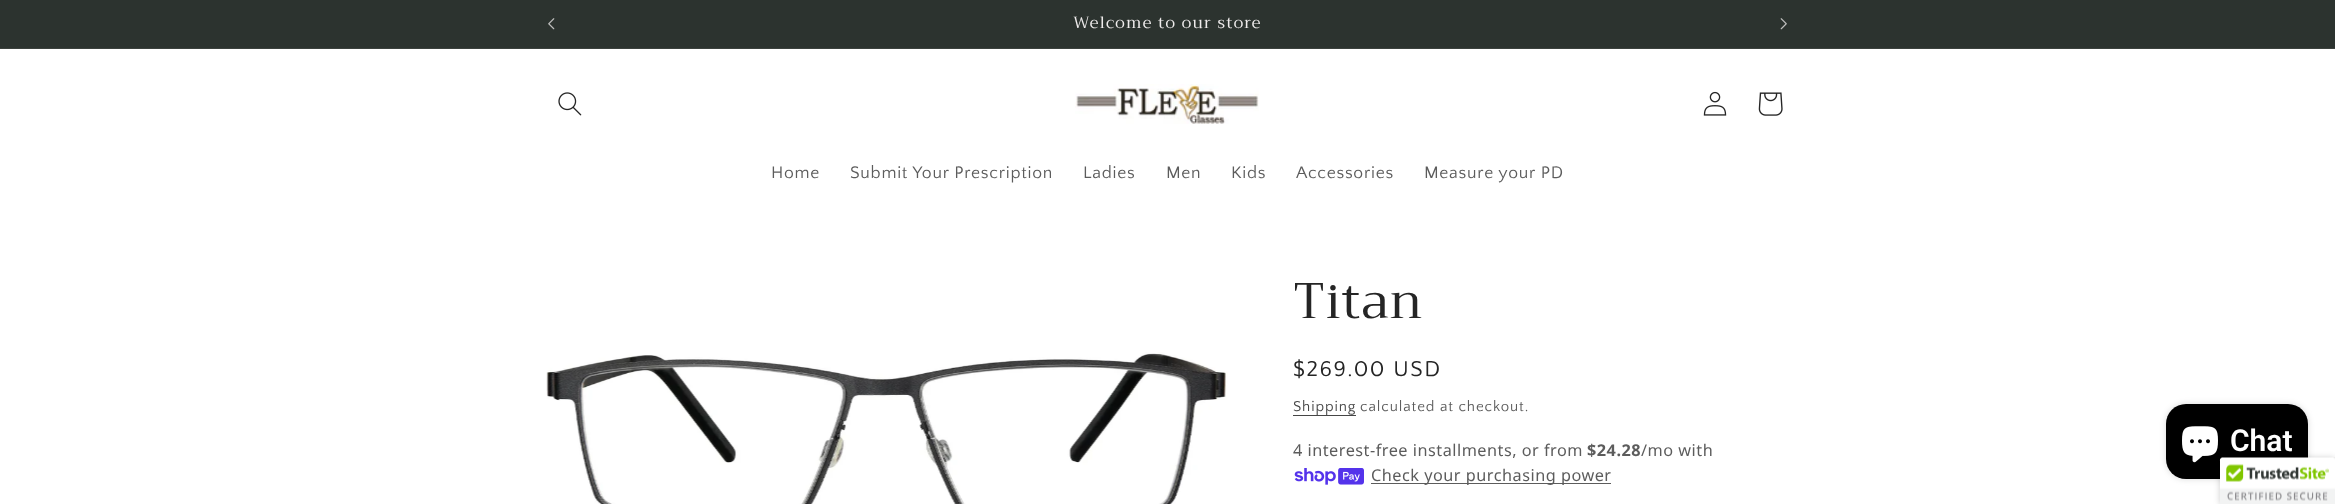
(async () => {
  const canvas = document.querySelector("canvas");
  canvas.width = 2335;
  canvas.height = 504;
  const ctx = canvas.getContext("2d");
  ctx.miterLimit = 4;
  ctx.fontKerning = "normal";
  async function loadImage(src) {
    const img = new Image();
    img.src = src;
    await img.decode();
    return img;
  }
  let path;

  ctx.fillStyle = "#ffffff";
  ctx.fillRect(0, 0, 2335, 504);
  ctx.fillStyle = "#2c332f";
  ctx.fillRect(0, 0, 2335, 48);
  ctx.fillStyle = "#3c423e";
  ctx.fillRect(0, 48, 2335, 1);
  ctx.drawImage(await loadImage("img/1.png"), 548, 18, 7, 12);
  ctx.drawImage(await loadImage("img/2.png"), 1780, 18, 7, 12);
  ctx.drawImage(await loadImage("img/3.png"), 558, 92, 24, 24);
  ctx.drawImage(await loadImage("img/4.png"), 1075, 84, 184, 40);
  ctx.drawImage(await loadImage("img/5.png"), 1703, 91, 24, 25);
  ctx.drawImage(await loadImage("img/6.png"), 1758, 92, 25, 24);
  ctx.drawImage(await loadImage("img/7.png"), 546, 352, 682, 152);
  ctx.fillStyle = "#464646";
  ctx.fillRect(1293, 415, 63, 1);
  ctx.drawImage(await loadImage("img/8.png"), 1294, 468, 70, 17);
  ctx.fillStyle = "#5c5c5c";
  ctx.fillRect(1371, 483, 240, 1);
  ctx.fillStyle = "rgba(0, 0, 0, 0.15)";
  ctx.filter = "blur(3px)";
  ctx.beginPath();
  ctx.roundRect(2166, 404, 142, 75, 20);
  ctx.fill();
  ctx.filter = "none";
  ctx.fillStyle = "#000000";
  ctx.beginPath();
  ctx.roundRect(2166, 404, 142, 75, 20);
  ctx.fill();
  ctx.drawImage(await loadImage("img/9.png"), 2182, 426, 36, 37);
  ctx.fillStyle = "rgba(0, 0, 0, 0.2)";
  ctx.filter = "blur(3px)";
  ctx.beginPath();
  ctx.roundRect(2220, 458, 115, 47, 2.5);
  ctx.fill();
  ctx.filter = "none";
  ctx.fillStyle = "#ffffff";
  path = new Path2D("M2222.5 458H2335V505H2220V460.5C2220 459 2221 458 2222.5 458Z");
  ctx.fill(path);
  ctx.drawImage(await loadImage("img/10.png"), 2220, 457, 115, 47);
  ctx.letterSpacing = "1.25px";
  ctx.font = "16.25px Trirong";
  ctx.fillStyle = "#efecec";
  ctx.fillText("Welcome to our store", 1073, 28);
  ctx.letterSpacing = "0.75px";
  ctx.font = "17.5px Quattrocento Sans";
  ctx.fillStyle = "#5c5c5c";
  for (const [text, x, y] of [
    ["Home", 771, 178],
    ["Submit Your Prescription", 850, 178],
    ["Ladies", 1083, 178],
    ["Men", 1166, 178],
    ["Kids", 1231, 178],
    ["Accessories", 1296, 178],
    ["Measure your PD", 1424, 178],
  ]) {
    ctx.fillText(text, x, y);
  }
  ctx.font = "50px Trirong";
  ctx.fillStyle = "#252525";
  ctx.fillText("Titan", 1293, 318);
  ctx.letterSpacing = "1.6px";
  ctx.font = "22.5px Quattrocento Sans";
  ctx.fillText("$269.00 USD", 1293, 376);
  ctx.letterSpacing = "0.9px";
  ctx.font = "15px Quattrocento Sans";
  ctx.fillStyle = "#464646";
  ctx.fillText("Shipping", 1293, 411);
  ctx.fillStyle = "#5c5c5c";
  ctx.fillText("calculated at checkout.", 1360, 411);
  ctx.letterSpacing = "0.5px";
  ctx.font = "16.25px Noto Sans";
  ctx.fillText("4 interest-free installments, or from", 1293, 456);
  ctx.font = "bold 16.25px Noto Sans";
  ctx.fillText("$24.28", 1587, 456);
  ctx.font = "16.25px Noto Sans";
  ctx.fillText("/mo with", 1641, 456);
  ctx.fillText("Check your purchasing power", 1371, 481);
  ctx.letterSpacing = "0px";
  ctx.font = "600 30px Roboto";
  ctx.fillStyle = "#ffffff";
  ctx.fillText("Chat", 2230, 451);
})();
